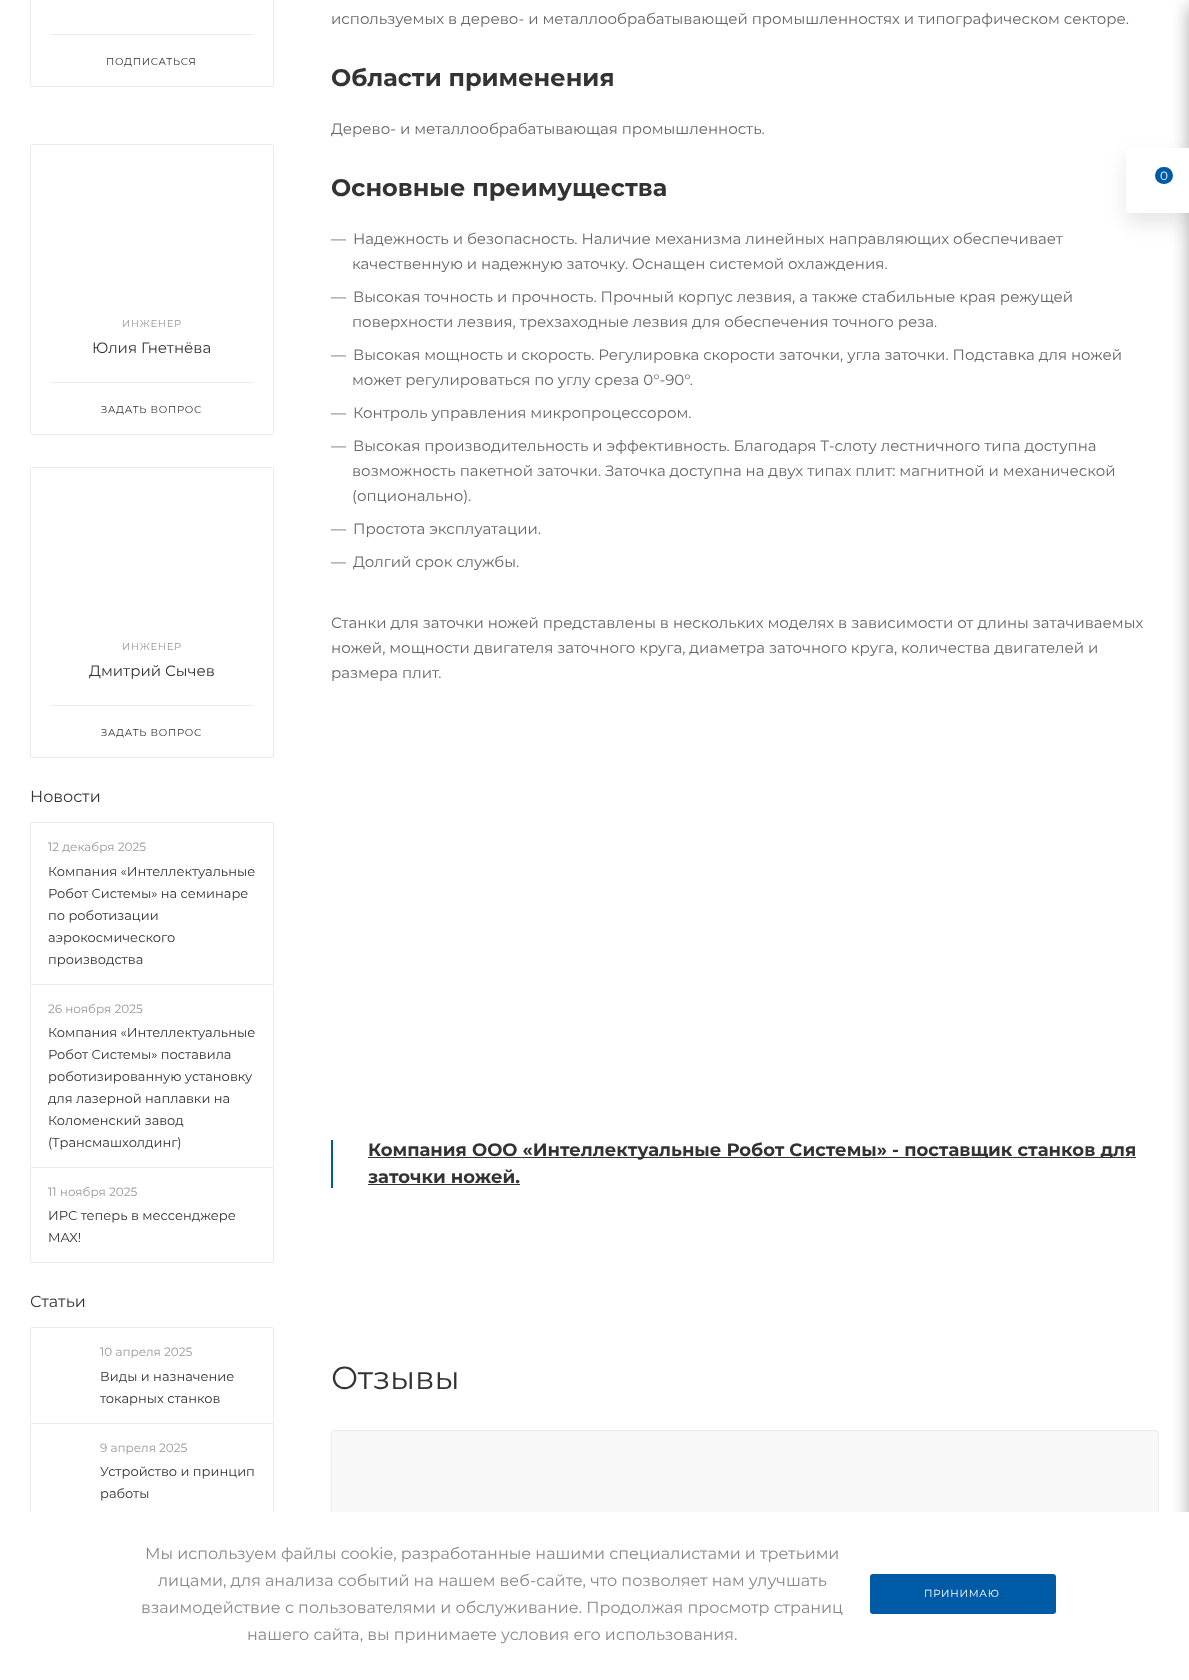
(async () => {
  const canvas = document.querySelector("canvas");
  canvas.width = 1189;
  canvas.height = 1680;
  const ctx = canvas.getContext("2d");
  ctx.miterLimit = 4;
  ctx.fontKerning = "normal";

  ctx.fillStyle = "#ffffff";
  ctx.fillRect(0, 0, 1189, 1680);
  ctx.beginPath();
  ctx.roundRect(30.5, -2.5, 243, 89, 1.5);
  ctx.strokeStyle = "#ececec";
  ctx.stroke();
  ctx.fillStyle = "#ececec";
  ctx.fillRect(50, 34, 204, 1);
  ctx.beginPath();
  ctx.roundRect(30.5, 144.5, 243, 290, 1.5);
  ctx.stroke();
  ctx.fillRect(50, 382, 204, 1);
  ctx.beginPath();
  ctx.roundRect(30.5, 467.5, 243, 290, 1.5);
  ctx.stroke();
  ctx.fillRect(50, 705, 204, 1);
  ctx.beginPath();
  ctx.roundRect(30.5, 822.5, 243, 162, 1.5);
  ctx.stroke();
  ctx.beginPath();
  ctx.roundRect(30.5, 984.5, 243, 183, 1.5);
  ctx.stroke();
  ctx.beginPath();
  ctx.roundRect(30.5, 1167.5, 243, 95, 1.5);
  ctx.stroke();
  ctx.beginPath();
  ctx.roundRect(30.5, 1327.5, 243, 96, 1.5);
  ctx.stroke();
  ctx.beginPath();
  ctx.roundRect(30.5, 1423.5, 243, 139, 1.5);
  ctx.stroke();
  for (const [x, y, w, h, color] of [
    [331, 1140, 2, 48, "#005d98"],
    [368, 1157, 768, 1, "#333333"],
    [368, 1184, 152, 1, "#333333"],
  ]) {
    ctx.fillStyle = color;
    ctx.fillRect(x, y, w, h);
  }
  ctx.fillStyle = "#f8f8f8";
  ctx.beginPath();
  ctx.roundRect(331.5, 1430.5, 827, 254, 3.5);
  ctx.fill();
  ctx.stroke();
  ctx.fillStyle = "rgba(44, 44, 44, 0.4)";
  ctx.filter = "blur(9px)";
  ctx.beginPath();
  ctx.roundRect(1189, 6, 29, 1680, 2);
  ctx.fill();
  ctx.filter = "none";
  ctx.fillStyle = "rgba(0, 0, 0, 0.1)";
  ctx.filter = "blur(10px)";
  ctx.beginPath();
  ctx.roundRect(1126, 158, 63, 65, 4);
  ctx.fill();
  ctx.filter = "none";
  ctx.fillStyle = "#ffffff";
  ctx.beginPath();
  ctx.roundRect(1126, 148, 63, 65, [4, 0, 0, 4]);
  ctx.fill();
  ctx.fillStyle = "#005ba7";
  ctx.beginPath();
  ctx.roundRect(1155, 167, 18, 17, 8.5);
  ctx.fill();
  ctx.fillStyle = "#ffffff";
  ctx.fillRect(30, 1512, 1159, 168);
  ctx.fillStyle = "#005ba7";
  ctx.beginPath();
  ctx.roundRect(870, 1574, 186, 40, 3);
  ctx.fill();
  ctx.letterSpacing = "0.75px";
  ctx.font = "10px Montserrat";
  ctx.fillStyle = "#333333";
  ctx.fillText("ПОДПИСАТЬСЯ", 106, 65);
  ctx.fillStyle = "#999999";
  ctx.fillText("ИНЖЕНЕР", 122, 327);
  ctx.letterSpacing = "0px";
  ctx.font = "15px Montserrat";
  ctx.fillStyle = "#333333";
  ctx.fillText("Юлия Гнетнёва", 92, 353);
  ctx.letterSpacing = "0.75px";
  ctx.font = "10px Montserrat";
  ctx.fillText("ЗАДАТЬ ВОПРОС", 101, 413);
  ctx.fillStyle = "#999999";
  ctx.fillText("ИНЖЕНЕР", 122, 650);
  ctx.letterSpacing = "0px";
  ctx.font = "15px Montserrat";
  ctx.fillStyle = "#333333";
  ctx.fillText("Дмитрий Сычев", 89, 676);
  ctx.letterSpacing = "0.75px";
  ctx.font = "10px Montserrat";
  ctx.fillText("ЗАДАТЬ ВОПРОС", 101, 736);
  ctx.letterSpacing = "0px";
  ctx.font = "16px Montserrat";
  ctx.fillText("Новости", 30, 802);
  ctx.font = "12px Montserrat";
  ctx.fillStyle = "#999999";
  ctx.fillText("12 декабря 2025", 48, 851);
  ctx.font = "13px Montserrat";
  ctx.fillStyle = "#333333";
  for (const [text, x, y] of [
    ["Компания «Интеллектуальные", 48, 876],
    ["Робот Системы» на семинаре", 48, 898],
    ["по роботизации", 48, 920],
    ["аэрокосмического", 48, 942],
    ["производства", 48, 964],
  ]) {
    ctx.fillText(text, x, y);
  }
  ctx.font = "12px Montserrat";
  ctx.fillStyle = "#999999";
  ctx.fillText("26 ноября 2025", 48, 1013);
  ctx.font = "13px Montserrat";
  ctx.fillStyle = "#333333";
  for (const [text, x, y] of [
    ["Компания «Интеллектуальные", 48, 1037],
    ["Робот Системы» поставила", 48, 1059],
    ["роботизированную установку", 48, 1081],
    ["для лазерной наплавки на", 48, 1103],
    ["Коломенский завод", 48, 1125],
    ["(Трансмашхолдинг)", 48, 1147],
  ]) {
    ctx.fillText(text, x, y);
  }
  ctx.font = "12px Montserrat";
  ctx.fillStyle = "#999999";
  ctx.fillText("11 ноября 2025", 48, 1196);
  ctx.font = "13px Montserrat";
  ctx.fillStyle = "#333333";
  ctx.fillText("ИРС теперь в мессенджере", 48, 1220);
  ctx.fillText("MAX!", 48, 1242);
  ctx.font = "16px Montserrat";
  ctx.fillText("Статьи", 30, 1307);
  ctx.font = "12px Montserrat";
  ctx.fillStyle = "#999999";
  ctx.fillText("10 апреля 2025", 100, 1356);
  ctx.font = "13px Montserrat";
  ctx.fillStyle = "#333333";
  ctx.fillText("Виды и назначение", 100, 1381);
  ctx.fillText("токарных станков", 100, 1403);
  ctx.font = "12px Montserrat";
  ctx.fillStyle = "#999999";
  ctx.fillText("9 апреля 2025", 100, 1452);
  ctx.font = "13px Montserrat";
  ctx.fillStyle = "#333333";
  ctx.fillText("Устройство и принцип", 100, 1476);
  ctx.fillText("работы", 100, 1498);
  ctx.font = "15px Montserrat";
  ctx.fillStyle = "#666666";
  ctx.fillText("используемых в дерево- и металлообрабатывающей промышленностях и типографическом секторе.", 331, 24);
  ctx.font = "bold 24px Montserrat";
  ctx.fillStyle = "#333333";
  ctx.fillText("Области применения", 331, 86);
  ctx.font = "15px Montserrat";
  ctx.fillStyle = "#666666";
  ctx.fillText("Дерево- и металлообрабатывающая промышленность.", 331, 134);
  ctx.font = "bold 24px Montserrat";
  ctx.fillStyle = "#333333";
  ctx.fillText("Основные преимущества", 331, 196);
  ctx.font = "15px Montserrat";
  ctx.fillStyle = "#666666";
  for (const [text, x, y] of [
    ["—", 331, 244],
    ["Надежность и безопасность. Наличие механизма линейных направляющих обеспечивает", 353, 244],
    ["качественную и надежную заточку. Оснащен системой охлаждения.", 352, 269],
    ["—", 331, 302],
    ["Высокая точность и прочность. Прочный корпус лезвия, а также стабильные края режущей", 353, 302],
    ["поверхности лезвия, трехзаходные лезвия для обеспечения точного реза.", 352, 327],
    ["—", 331, 360],
    ["Высокая мощность и скорость. Регулировка скорости заточки, угла заточки. Подставка для ножей", 353, 360],
    ["может регулироваться по углу среза 0°-90°.", 352, 385],
    ["—", 331, 418],
    ["Контроль управления микропроцессором.", 353, 418],
    ["—", 331, 451],
    ["Высокая производительность и эффективность. Благодаря Т-слоту лестничного типа доступна", 353, 451],
    ["возможность пакетной заточки. Заточка доступна на двух типах плит: магнитной и механической", 352, 476],
    ["(опционально).", 352, 501],
    ["—", 331, 534],
    ["Простота эксплуатации.", 353, 534],
    ["—", 331, 567],
    ["Долгий срок службы.", 353, 567],
    ["Станки для заточки ножей представлены в нескольких моделях в зависимости от длины затачиваемых", 331, 628],
    ["ножей, мощности двигателя заточного круга, диаметра заточного круга, количества двигателей и", 331, 653],
    ["размера плит.", 331, 678],
  ]) {
    ctx.fillText(text, x, y);
  }
  ctx.font = "bold 18px Montserrat";
  ctx.fillStyle = "#333333";
  ctx.fillText("Компания ООО «Интеллектуальные Робот Системы» - поставщик станков для", 368, 1156);
  ctx.fillText("заточки ножей.", 368, 1183);
  ctx.font = "32px Montserrat";
  ctx.fillText("Отзывы", 331, 1389);
  ctx.font = "12px Montserrat";
  ctx.fillStyle = "#ffffff";
  ctx.fillText("0", 1160, 180);
  ctx.font = "16px Montserrat";
  ctx.fillStyle = "#888888";
  for (const [text, x, y] of [
    ["Мы используем файлы cookie, разработанные нашими специалистами и третьими", 145, 1559],
    ["лицами, для анализа событий на нашем веб-сайте, что позволяет нам улучшать", 158, 1586],
    ["взаимодействие с пользователями и обслуживание. Продолжая просмотр страниц", 141, 1613],
    ["нашего сайта, вы принимаете условия его использования.", 247, 1640],
  ]) {
    ctx.fillText(text, x, y);
  }
  ctx.letterSpacing = "0.75px";
  ctx.font = "10.25px Montserrat";
  ctx.fillStyle = "#ffffff";
  ctx.fillText("ПРИНИМАЮ", 924, 1597);
})();
